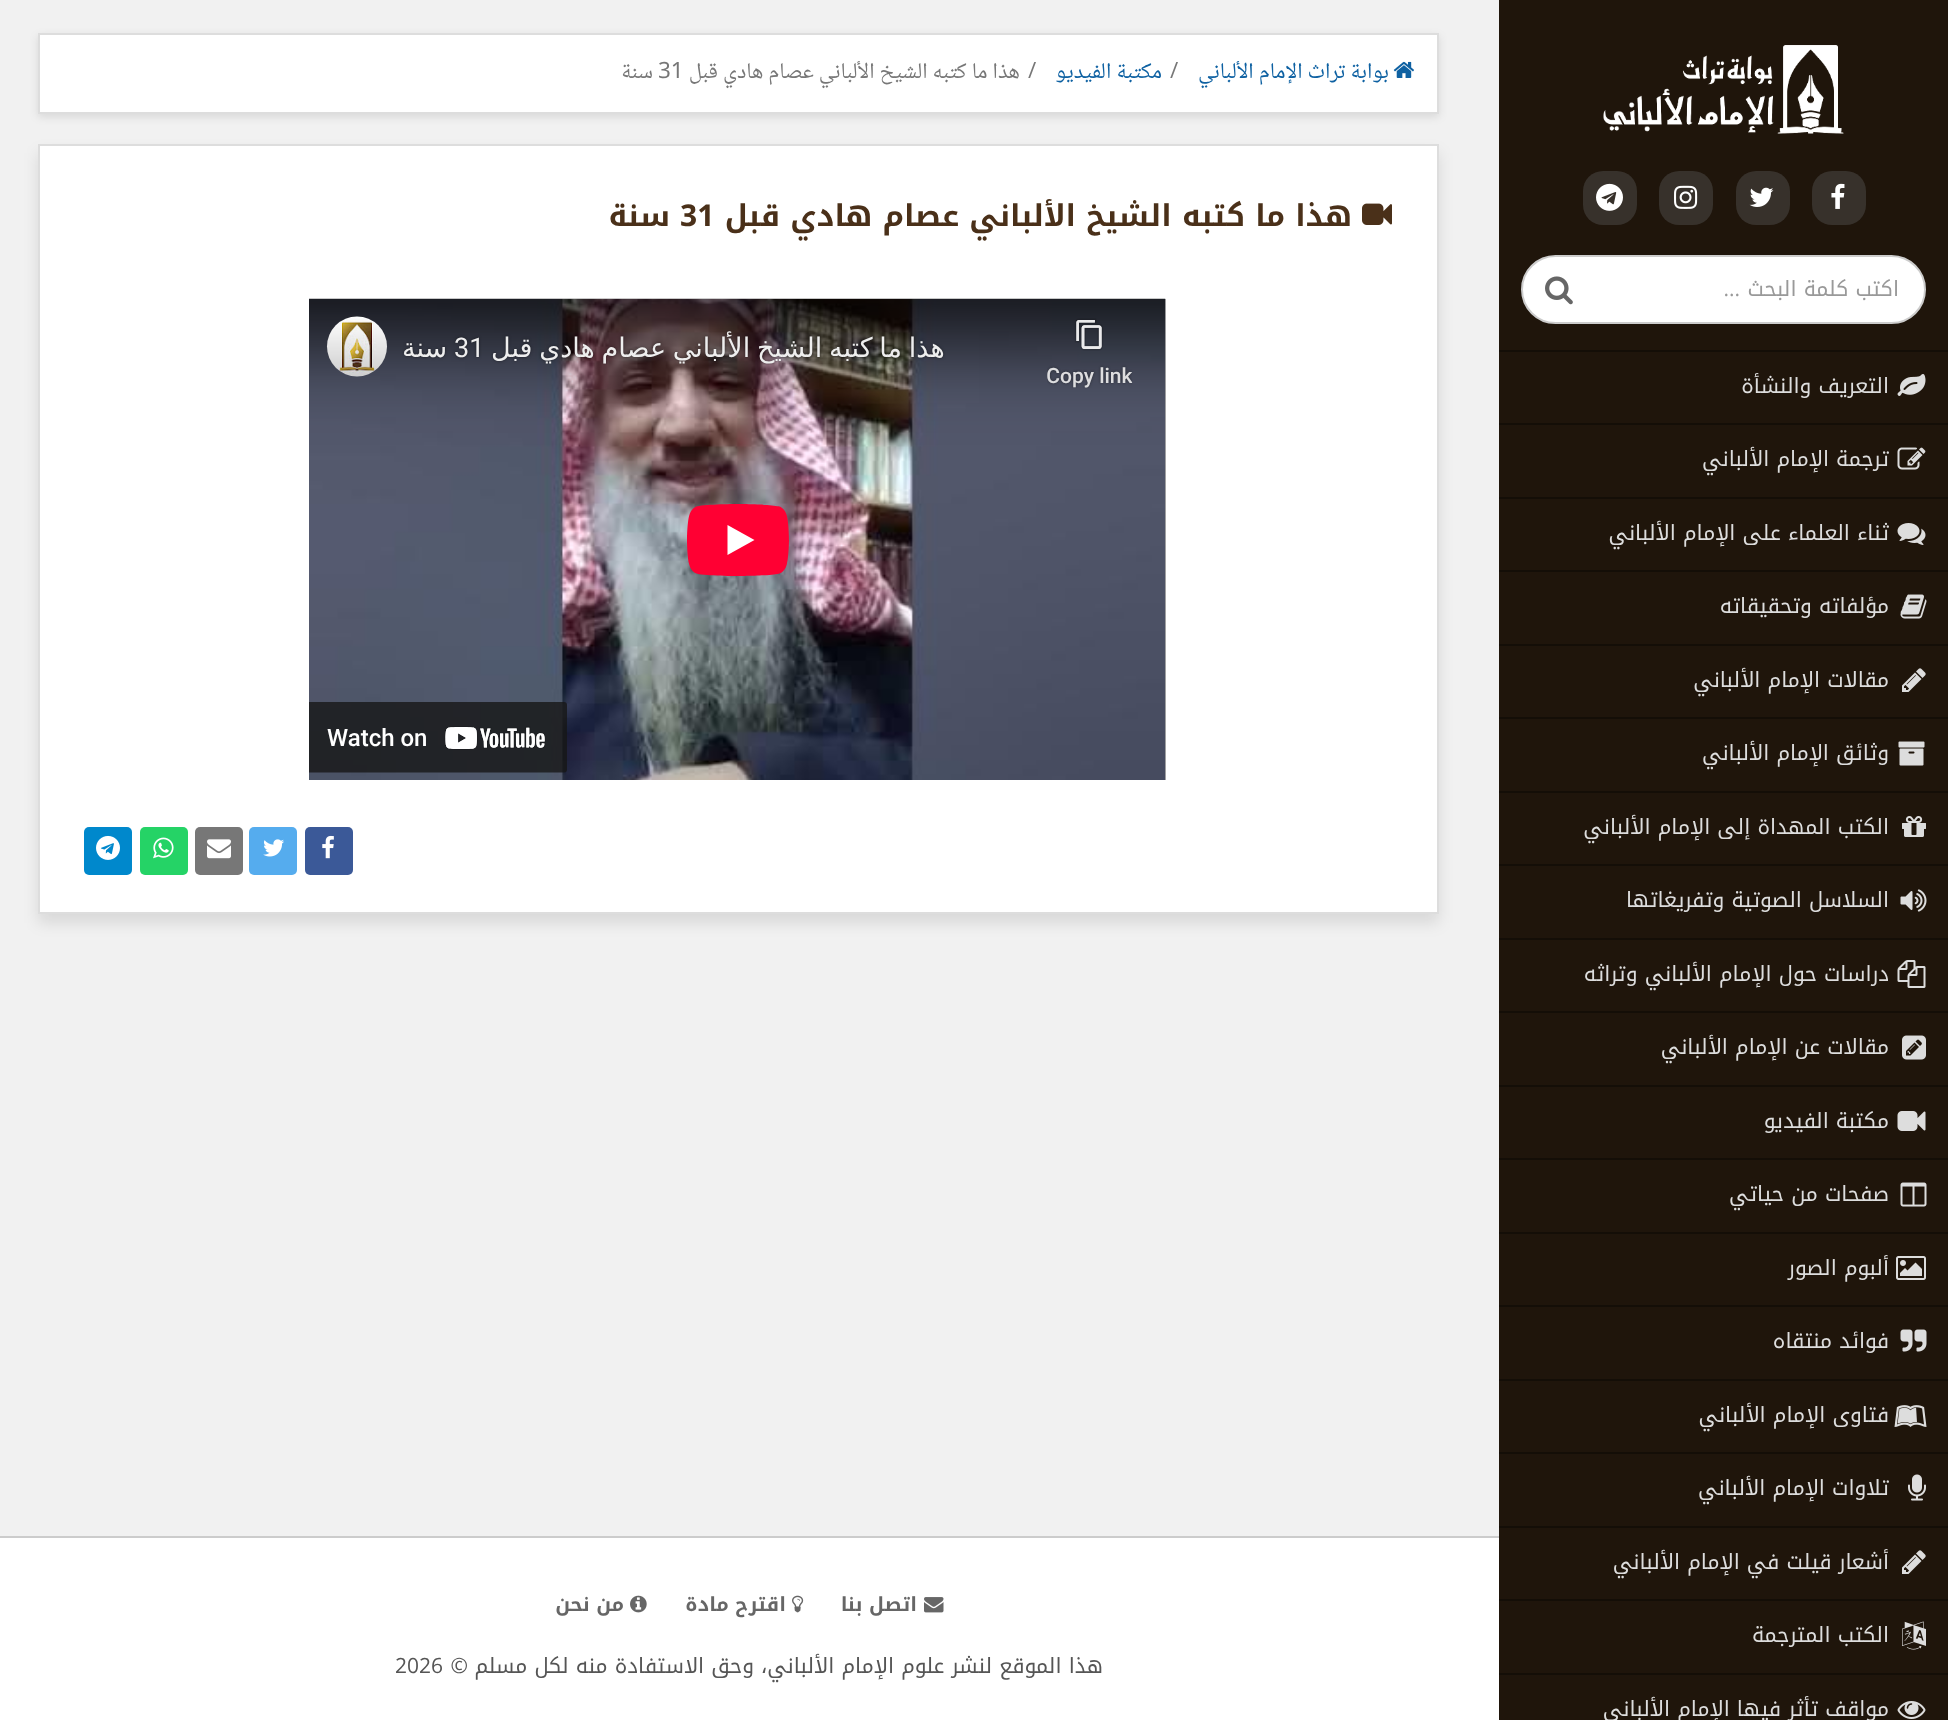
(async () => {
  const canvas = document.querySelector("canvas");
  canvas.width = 1948;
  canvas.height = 1720;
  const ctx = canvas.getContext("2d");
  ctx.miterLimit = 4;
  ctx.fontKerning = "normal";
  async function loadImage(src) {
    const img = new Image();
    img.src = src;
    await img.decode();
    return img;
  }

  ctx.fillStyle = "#f1f1f1";
  ctx.fillRect(0, 0, 1948, 1720);
  ctx.fillStyle = "rgba(0, 0, 0, 0.1)";
  ctx.filter = "blur(4px)";
  ctx.beginPath();
  ctx.rect(38, 36, 1401, 81);
  ctx.fill();
  ctx.filter = "none";
  ctx.fillStyle = "#ffffff";
  ctx.beginPath();
  ctx.rect(39, 34, 1399, 79);
  ctx.fill();
  ctx.strokeStyle = "#dddddd";
  ctx.lineWidth = 2;
  ctx.stroke();
  ctx.drawImage(await loadImage("img/1.png"), 1393, 61, 21, 17);
  ctx.fillStyle = "rgba(0, 0, 0, 0.1)";
  ctx.filter = "blur(7.5px)";
  ctx.beginPath();
  ctx.rect(38, 153, 1401, 770);
  ctx.fill();
  ctx.filter = "none";
  ctx.fillStyle = "#ffffff";
  ctx.beginPath();
  ctx.rect(39, 145, 1399, 768);
  ctx.fill();
  ctx.stroke();
  ctx.drawImage(await loadImage("img/2.png"), 1362, 203, 30, 22);
  ctx.drawImage(await loadImage("img/3.png"), 309, 298, 857, 482);
  ctx.fillStyle = "#3b5998";
  ctx.beginPath();
  ctx.roundRect(305, 827, 48, 48, 5);
  ctx.fill();
  ctx.drawImage(await loadImage("img/4.png"), 322, 835, 12, 24);
  ctx.fillStyle = "#55acee";
  ctx.beginPath();
  ctx.roundRect(249, 827, 48, 48, 5);
  ctx.fill();
  ctx.drawImage(await loadImage("img/5.png"), 263, 839, 21, 18);
  ctx.fillStyle = "#777777";
  ctx.beginPath();
  ctx.roundRect(195, 827, 48, 48, 5);
  ctx.fill();
  ctx.drawImage(await loadImage("img/6.png"), 207, 839, 24, 20);
  ctx.fillStyle = "#25d366";
  ctx.beginPath();
  ctx.roundRect(140, 827, 48, 48, 5);
  ctx.fill();
  ctx.drawImage(await loadImage("img/7.png"), 153, 837, 21, 22);
  ctx.fillStyle = "#0088cc";
  ctx.beginPath();
  ctx.roundRect(84, 827, 48, 48, 5);
  ctx.fill();
  ctx.drawImage(await loadImage("img/8.png"), 96, 835, 24, 25);
  ctx.fillStyle = "#1f150b";
  ctx.fillRect(1499, 0, 449, 1720);
  ctx.fillStyle = "#140e07";
  ctx.fillRect(1499, 350, 449, 2);
  ctx.drawImage(await loadImage("img/9.png"), 1603, 45, 241, 89);
  ctx.fillStyle = "#37312b";
  ctx.beginPath();
  ctx.roundRect(1812, 171, 54, 54, 20);
  ctx.fill();
  ctx.drawImage(await loadImage("img/10.png"), 1831, 183, 14, 26);
  ctx.beginPath();
  ctx.roundRect(1736, 171, 54, 54, 20);
  ctx.fill();
  ctx.drawImage(await loadImage("img/11.png"), 1749, 187, 25, 20);
  ctx.beginPath();
  ctx.roundRect(1659, 171, 54, 54, 20);
  ctx.fill();
  ctx.drawImage(await loadImage("img/12.png"), 1674, 185, 24, 24);
  ctx.beginPath();
  ctx.roundRect(1583, 171, 54, 54, 20);
  ctx.fill();
  ctx.drawImage(await loadImage("img/13.png"), 1596, 183, 27, 28);
  ctx.fillStyle = "#ffffff";
  ctx.beginPath();
  ctx.roundRect(1522, 256, 403, 67, 33.5);
  ctx.fill();
  ctx.strokeStyle = "#cccccc";
  ctx.stroke();
  ctx.drawImage(await loadImage("img/14.png"), 1545, 276, 28, 29);
  ctx.fillStyle = "#140e07";
  ctx.fillRect(1499, 423, 449, 2);
  ctx.drawImage(await loadImage("img/15.png"), 1897, 374, 29, 22);
  ctx.fillRect(1499, 497, 449, 2);
  ctx.drawImage(await loadImage("img/16.png"), 1897, 447, 29, 23);
  ctx.fillRect(1499, 570, 449, 2);
  ctx.drawImage(await loadImage("img/17.png"), 1897, 523, 29, 22);
  ctx.fillRect(1499, 644, 449, 2);
  ctx.drawImage(await loadImage("img/18.png"), 1900, 594, 27, 25);
  ctx.fillRect(1499, 717, 449, 2);
  ctx.drawImage(await loadImage("img/19.png"), 1902, 668, 24, 24);
  ctx.fillRect(1499, 791, 449, 2);
  ctx.drawImage(await loadImage("img/20.png"), 1898, 741, 27, 25);
  ctx.fillRect(1499, 864, 449, 2);
  ctx.drawImage(await loadImage("img/21.png"), 1902, 816, 24, 21);
  ctx.fillRect(1499, 938, 449, 2);
  ctx.drawImage(await loadImage("img/22.png"), 1900, 889, 27, 23);
  ctx.fillRect(1499, 1011, 449, 2);
  ctx.drawImage(await loadImage("img/23.png"), 1897, 960, 29, 28);
  ctx.fillRect(1499, 1085, 449, 2);
  ctx.drawImage(await loadImage("img/24.png"), 1902, 1035, 24, 25);
  ctx.fillRect(1499, 1158, 449, 2);
  ctx.drawImage(await loadImage("img/25.png"), 1897, 1111, 29, 20);
  ctx.fillRect(1499, 1232, 449, 2);
  ctx.drawImage(await loadImage("img/26.png"), 1900, 1182, 27, 25);
  ctx.fillRect(1499, 1305, 449, 2);
  ctx.drawImage(await loadImage("img/27.png"), 1896, 1256, 30, 24);
  ctx.fillRect(1499, 1379, 449, 2);
  ctx.drawImage(await loadImage("img/28.png"), 1900, 1329, 27, 23);
  ctx.fillRect(1499, 1452, 449, 2);
  ctx.drawImage(await loadImage("img/29.png"), 1894, 1405, 33, 22);
  ctx.fillRect(1499, 1526, 449, 2);
  ctx.drawImage(await loadImage("img/30.png"), 1908, 1474, 18, 27);
  ctx.fillRect(1499, 1599, 449, 2);
  ctx.drawImage(await loadImage("img/19.png"), 1902, 1550, 24, 24);
  ctx.fillRect(1499, 1673, 449, 2);
  ctx.drawImage(await loadImage("img/31.png"), 1902, 1621, 24, 29);
  ctx.drawImage(await loadImage("img/32.png"), 1897, 1701, 29, 18);
  ctx.fillStyle = "#ffffff";
  ctx.fillRect(0, 1538, 1499, 182);
  ctx.fillStyle = "#cccccc";
  ctx.fillRect(0, 1536, 1499, 2);
  ctx.drawImage(await loadImage("img/33.png"), 924, 1597, 20, 16);
  ctx.drawImage(await loadImage("img/34.png"), 792, 1595, 12, 18);
  ctx.drawImage(await loadImage("img/35.png"), 630, 1595, 17, 18);
  ctx.direction = "rtl";
  ctx.font = "22.5px Noto Naskh Arabic";
  ctx.fillStyle = "#0e61a2";
  ctx.fillText("بوابة تراث الإمام الألباني", 1389, 78);
  ctx.direction = "ltr";
  ctx.font = "22.5px Open Sans";
  ctx.fillStyle = "#777777";
  ctx.fillText("/", 1170, 78);
  ctx.direction = "rtl";
  ctx.font = "22.5px Noto Naskh Arabic";
  ctx.fillStyle = "#0e61a2";
  ctx.fillText("مكتبة الفيديو", 1162, 78);
  ctx.direction = "ltr";
  ctx.font = "22.5px Open Sans";
  ctx.fillStyle = "#777777";
  ctx.fillText("/", 1028, 78);
  ctx.direction = "rtl";
  ctx.font = "22.5px Noto Naskh Arabic";
  ctx.fillText("هذا ما كتبه الشيخ الألباني عصام هادي", 1020, 78);
  ctx.fillText("قبل", 718, 78);
  ctx.direction = "ltr";
  ctx.fillText("31", 658, 78);
  ctx.direction = "rtl";
  ctx.fillText("سنة", 653, 78);
  ctx.font = "bold 30px Noto Kufi Arabic";
  ctx.fillStyle = "#4a3019";
  ctx.fillText("هذا ما كتبه الشيخ الألباني عصام هادي", 1352, 226);
  ctx.fillText("قبل", 780, 226);
  ctx.direction = "ltr";
  ctx.font = "bold 30px Open Sans";
  ctx.fillText("31", 680, 226);
  ctx.direction = "rtl";
  ctx.font = "bold 30px Noto Kufi Arabic";
  ctx.fillText("سنة", 670, 226);
  ctx.font = "21px Noto Kufi Arabic";
  ctx.fillStyle = "#999999";
  ctx.fillText("اكتب كلمة البحث", 1899, 296);
  ctx.font = "21px Open Sans";
  ctx.fillText("...", 1740, 296);
  ctx.font = "21px Noto Kufi Arabic";
  ctx.fillStyle = "#dddddd";
  for (const [text, x, y] of [
    ["التعريف والنشأة", 1889, 393],
    ["ترجمة الإمام الألباني", 1889, 466],
    ["ثناء العلماء على الإمام الألباني", 1889, 540],
    ["مؤلفاته وتحقيقاته", 1889, 613],
    ["مقالات الإمام الألباني", 1889, 687],
    ["وثائق الإمام الألباني", 1889, 760],
    ["الكتب المهداة إلى الإمام الألباني", 1889, 834],
    ["السلاسل الصوتية وتفريغاتها", 1889, 907],
    ["دراسات حول الإمام الألباني وتراثه", 1889, 981],
    ["مقالات عن الإمام الألباني", 1889, 1054],
    ["مكتبة الفيديو", 1889, 1128],
    ["صفحات من حياتي", 1889, 1201],
    ["ألبوم الصور", 1889, 1275],
    ["فوائد منتقاه", 1889, 1348],
    ["فتاوى الإمام الألباني", 1889, 1422],
    ["تلاوات الإمام الألباني", 1889, 1495],
    ["أشعار قيلت في الإمام الألباني", 1889, 1569],
    ["الكتب المترجمة", 1889, 1642],
    ["مواقف تأثر فيها الإمام الألباني", 1889, 1716],
  ]) {
    ctx.fillText(text, x, y);
  }
  ctx.font = "bold 19.5px Noto Kufi Arabic";
  ctx.fillStyle = "#666666";
  for (const [text, x, y] of [
    ["اتصل بنا", 917, 1611],
    ["اقترح مادة", 786, 1611],
    ["من نحن", 624, 1611],
  ]) {
    ctx.fillText(text, x, y);
  }
  ctx.font = "21px Noto Kufi Arabic";
  ctx.fillStyle = "#555555";
  ctx.fillText("هذا الموقع لنشر علوم الإمام الألباني، وحق الاستفادة منه لكل مسلم", 1103, 1673);
  ctx.font = "21px Open Sans";
  ctx.fillText("©", 468, 1673);
  ctx.direction = "ltr";
  ctx.fillText("2026", 395, 1673);
})();
